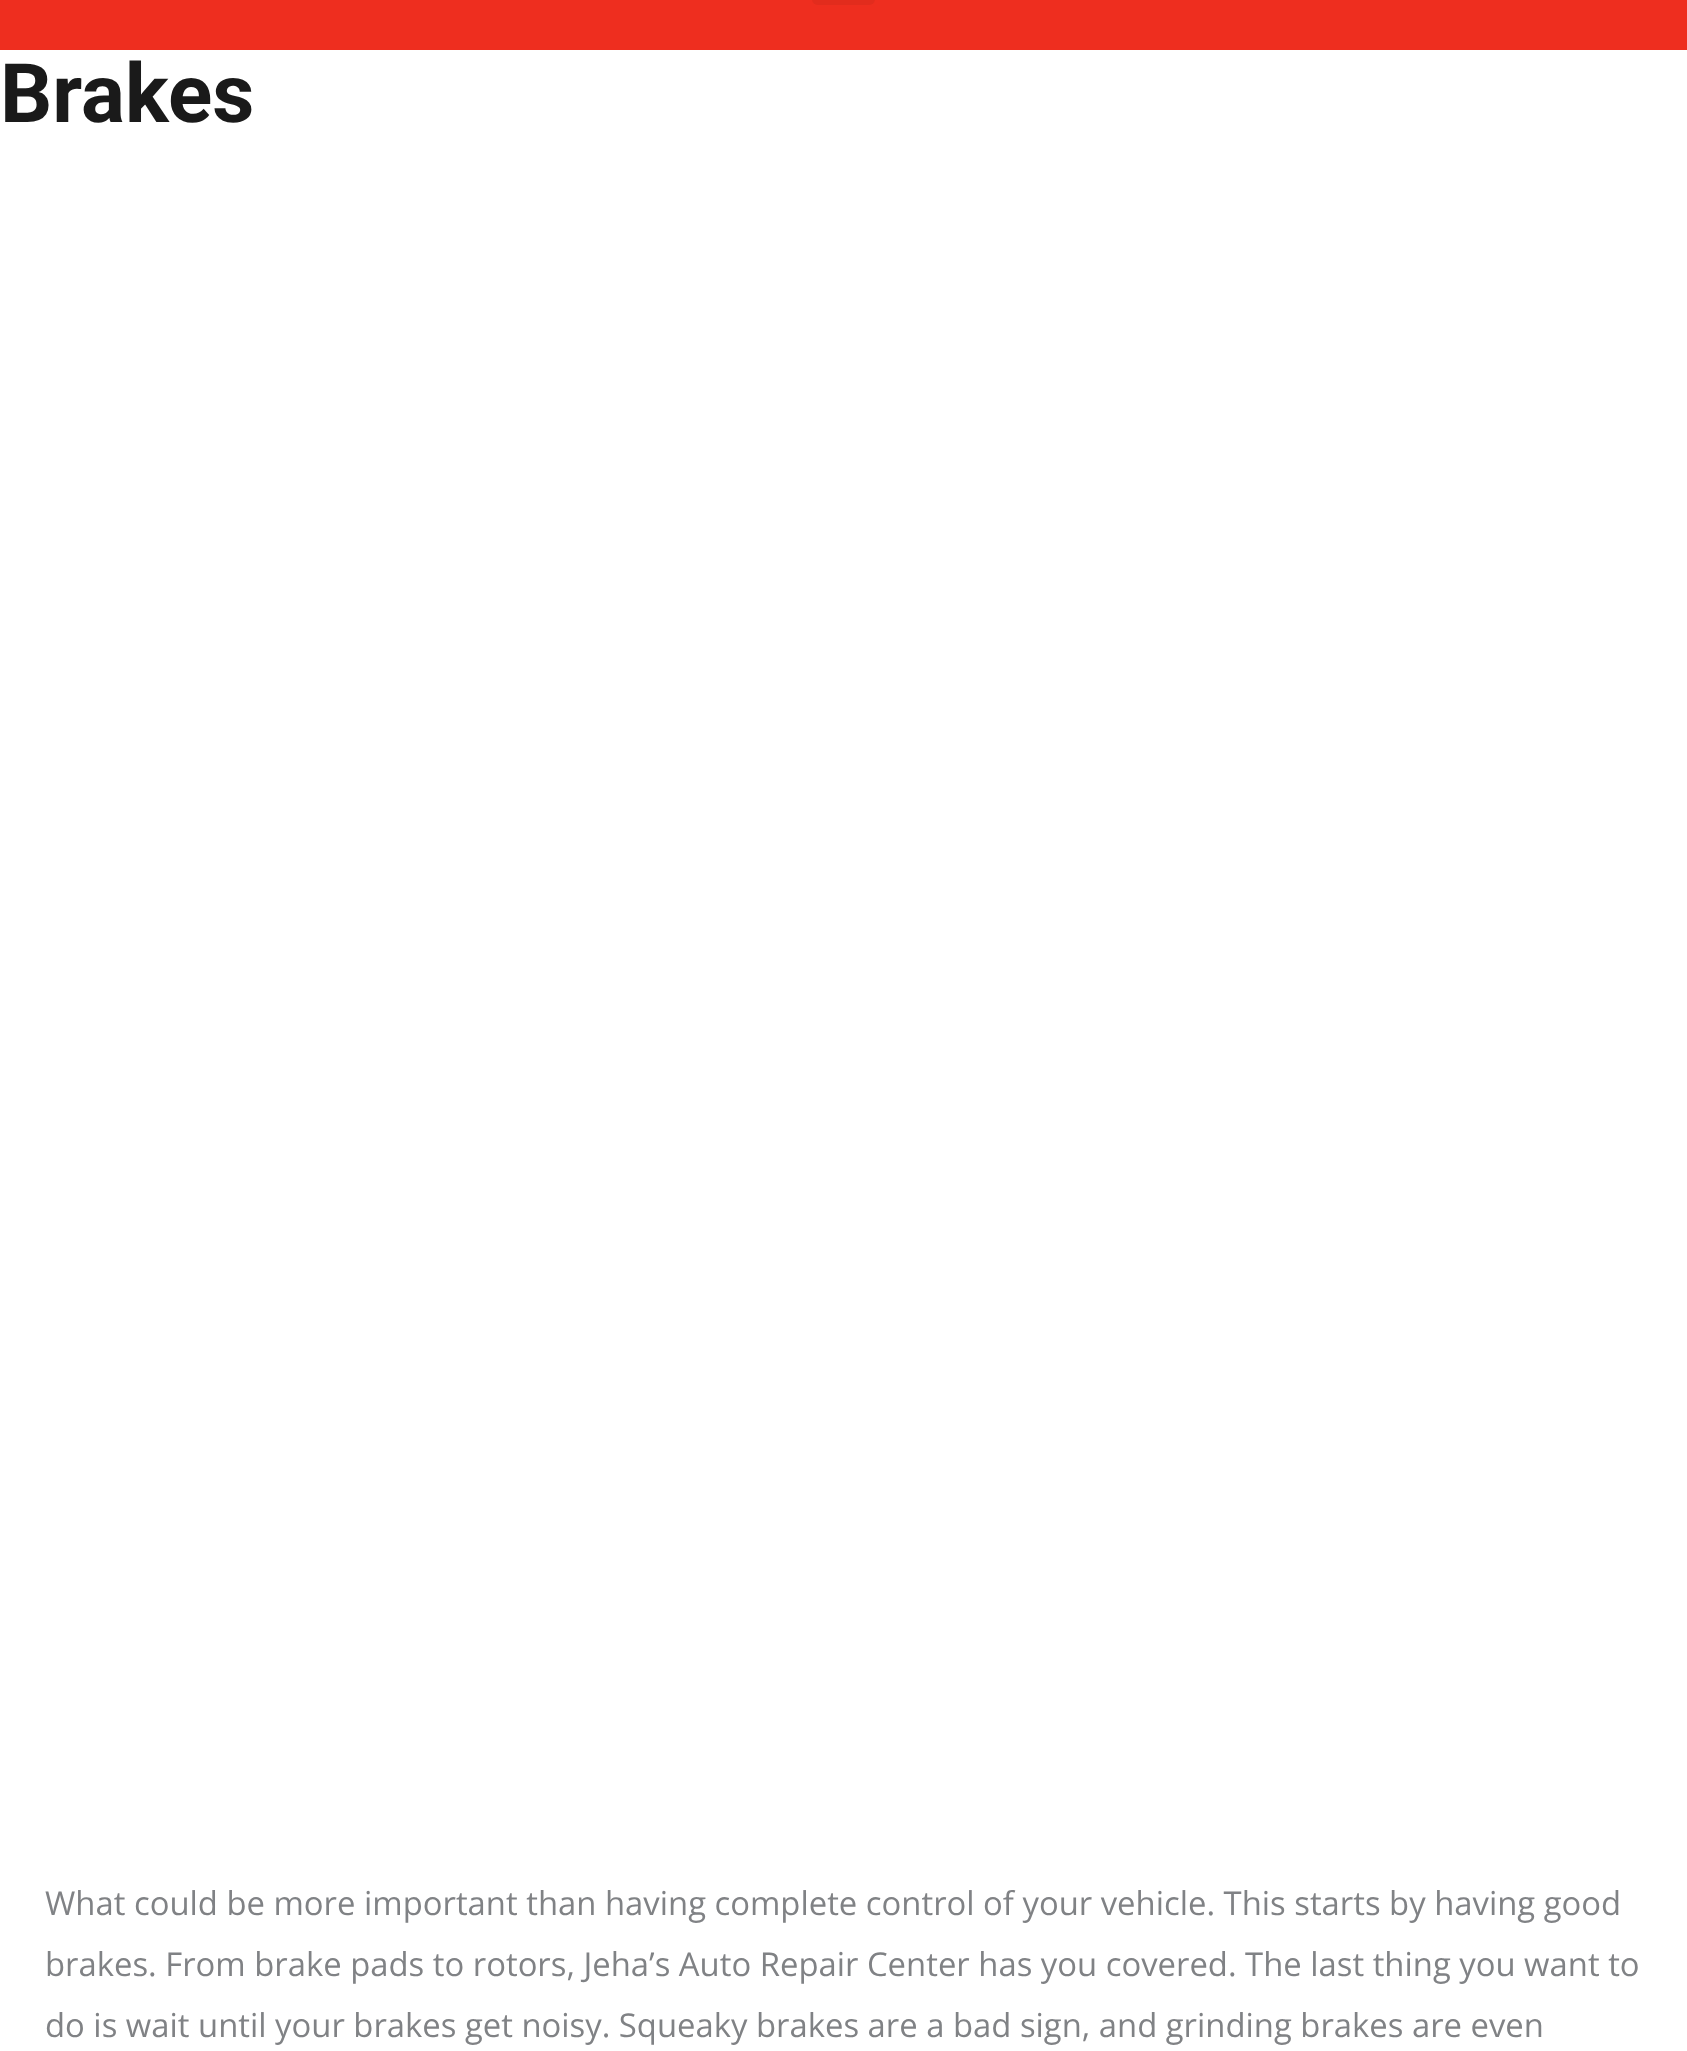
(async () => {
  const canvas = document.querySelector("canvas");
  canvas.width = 1687;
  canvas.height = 2051;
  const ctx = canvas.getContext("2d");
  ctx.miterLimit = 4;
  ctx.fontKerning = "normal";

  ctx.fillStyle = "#ffffff";
  ctx.fillRect(0, 0, 1687, 2051);
  ctx.fillStyle = "#ee2e1f";
  ctx.fillRect(0, 0, 1687, 50);
  ctx.fillStyle = "#e22c1d";
  ctx.beginPath();
  ctx.roundRect(812, -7, 63, 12, 7);
  ctx.fill();
  ctx.font = "bold 82px Roboto";
  ctx.fillStyle = "#1a1a1a";
  ctx.fillText("Brakes", 0, 122);
  ctx.font = "32.85px Open Sans";
  ctx.fillStyle = "#808285";
  for (const [text, x, y] of [
    ["What could be more important than having complete control of your vehicle. This starts by having good", 45, 1915],
    ["brakes. From brake pads to rotors, Jeha’s Auto Repair Center has you covered. The last thing you want to", 45, 1976],
    ["do is wait until your brakes get noisy. Squeaky brakes are a bad sign, and grinding brakes are even", 45, 2037],
  ]) {
    ctx.fillText(text, x, y);
  }
})();
